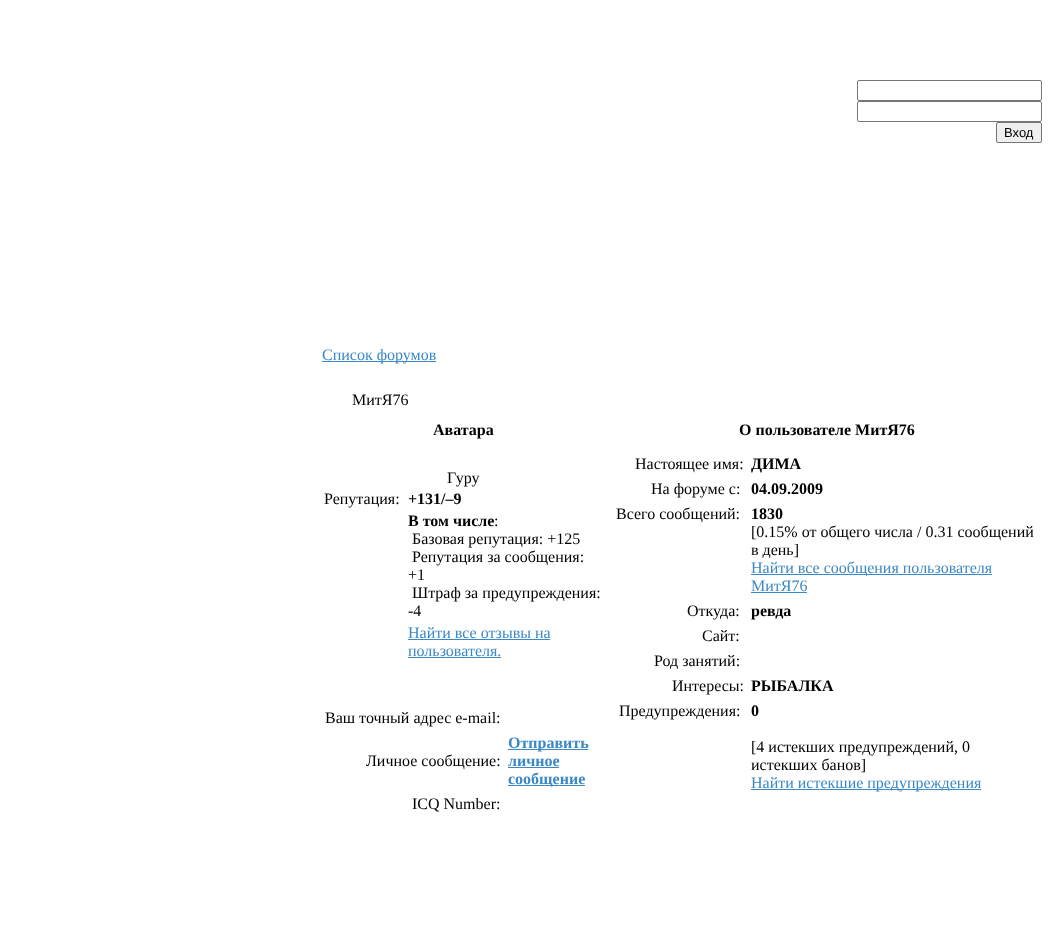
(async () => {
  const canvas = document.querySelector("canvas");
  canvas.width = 1063;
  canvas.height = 929;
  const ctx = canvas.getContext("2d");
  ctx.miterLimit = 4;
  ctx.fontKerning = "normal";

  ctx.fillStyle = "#ffffff";
  ctx.fillRect(0, 0, 1063, 929);
  ctx.beginPath();
  ctx.roundRect(857.5, 80.5, 184, 20, 1.5);
  ctx.strokeStyle = "#767676";
  ctx.stroke();
  ctx.beginPath();
  ctx.roundRect(857.5, 101.5, 184, 20, 1.5);
  ctx.stroke();
  ctx.fillStyle = "#efefef";
  ctx.beginPath();
  ctx.roundRect(996.5, 122.5, 45, 20, 1.5);
  ctx.fill();
  ctx.stroke();
  for (const [x, y, w, h, color] of [
    [322, 361, 114, 1, "#3b88c5"],
    [408, 639, 142, 1, "#3b88c5"],
    [408, 657, 93, 1, "#3b88c5"],
    [751, 574, 241, 1, "#3b88c5"],
    [751, 592, 56, 1, "#3b88c5"],
    [751, 789, 230, 1, "#3b88c5"],
    [508, 749, 80, 1, "#3b88c5"],
    [508, 767, 51, 1, "#3b88c5"],
    [508, 785, 77, 1, "#3b88c5"],
  ]) {
    ctx.fillStyle = color;
    ctx.fillRect(x, y, w, h);
  }
  ctx.font = "13px Liberation Sans";
  ctx.fillStyle = "#000000";
  ctx.fillText("Вход", 1004, 137);
  ctx.font = "16px Liberation Serif";
  ctx.fillStyle = "#3b88c5";
  ctx.fillText("Список форумов", 322, 360);
  ctx.fillStyle = "#000000";
  ctx.fillText("МитЯ76", 352, 405);
  ctx.font = "bold 16px Liberation Serif";
  ctx.fillText("Аватара", 433, 435);
  ctx.fillText("О пользователе МитЯ76", 739, 435);
  ctx.font = "16px Liberation Serif";
  ctx.fillText("Гуру", 447, 483);
  ctx.fillText("Репутация:", 324, 504);
  ctx.font = "bold 16px Liberation Serif";
  ctx.fillText("+131/–9", 408, 504);
  ctx.fillText("В том числе", 408, 526);
  ctx.font = "16px Liberation Serif";
  for (const [text, x, y] of [
    [":", 494, 526],
    ["Базовая репутация: +125", 412, 544],
    ["Репутация за сообщения:", 412, 562],
    ["+1", 408, 580],
    ["Штраф за предупреждения:", 412, 598],
    ["-4", 408, 616],
  ]) {
    ctx.fillText(text, x, y);
  }
  ctx.fillStyle = "#3b88c5";
  ctx.fillText("Найти все отзывы на", 408, 638);
  ctx.fillText("пользователя.", 408, 656);
  ctx.fillStyle = "#000000";
  ctx.fillText("Настоящее имя:", 635, 469);
  ctx.font = "bold 16px Liberation Serif";
  ctx.fillText("ДИМА", 751, 469);
  ctx.font = "16px Liberation Serif";
  ctx.fillText("На форуме с:", 651, 494);
  ctx.font = "bold 16px Liberation Serif";
  ctx.fillText("04.09.2009", 751, 494);
  ctx.font = "16px Liberation Serif";
  ctx.fillText("Всего сообщений:", 616, 519);
  ctx.font = "bold 16px Liberation Serif";
  ctx.fillText("1830", 751, 519);
  ctx.font = "16px Liberation Serif";
  ctx.fillText("[0.15% от общего числа / 0.31 сообщений", 751, 537);
  ctx.fillText("в день]", 751, 555);
  ctx.fillStyle = "#3b88c5";
  ctx.fillText("Найти все сообщения пользователя", 751, 573);
  ctx.fillText("МитЯ76", 751, 591);
  ctx.fillStyle = "#000000";
  ctx.fillText("Откуда:", 687, 616);
  ctx.font = "bold 16px Liberation Serif";
  ctx.fillText("ревда", 751, 616);
  ctx.font = "16px Liberation Serif";
  for (const [text, x, y] of [
    ["Сайт:", 702, 641],
    ["Род занятий:", 654, 666],
    ["Интересы:", 672, 691],
  ]) {
    ctx.fillText(text, x, y);
  }
  ctx.font = "bold 16px Liberation Serif";
  ctx.fillText("РЫБАЛКА", 751, 691);
  ctx.font = "16px Liberation Serif";
  ctx.fillText("Предупреждения:", 619, 716);
  ctx.font = "bold 16px Liberation Serif";
  ctx.fillText("0", 751, 716);
  ctx.font = "16px Liberation Serif";
  ctx.fillText("[4 истекших предупреждений, 0", 751, 752);
  ctx.fillText("истекших банов]", 751, 770);
  ctx.fillStyle = "#3b88c5";
  ctx.fillText("Найти истекшие предупреждения", 751, 788);
  ctx.fillStyle = "#000000";
  ctx.fillText("Ваш точный адрес e-mail:", 325, 723);
  ctx.fillText("Личное сообщение:", 366, 766);
  ctx.font = "bold 16px Liberation Serif";
  ctx.fillStyle = "#3b88c5";
  for (const [text, x, y] of [
    ["Отправить", 508, 748],
    ["личное", 508, 766],
    ["сообщение", 508, 784],
  ]) {
    ctx.fillText(text, x, y);
  }
  ctx.font = "16px Liberation Serif";
  ctx.fillStyle = "#000000";
  ctx.fillText("ICQ Number:", 412, 809);
})();
